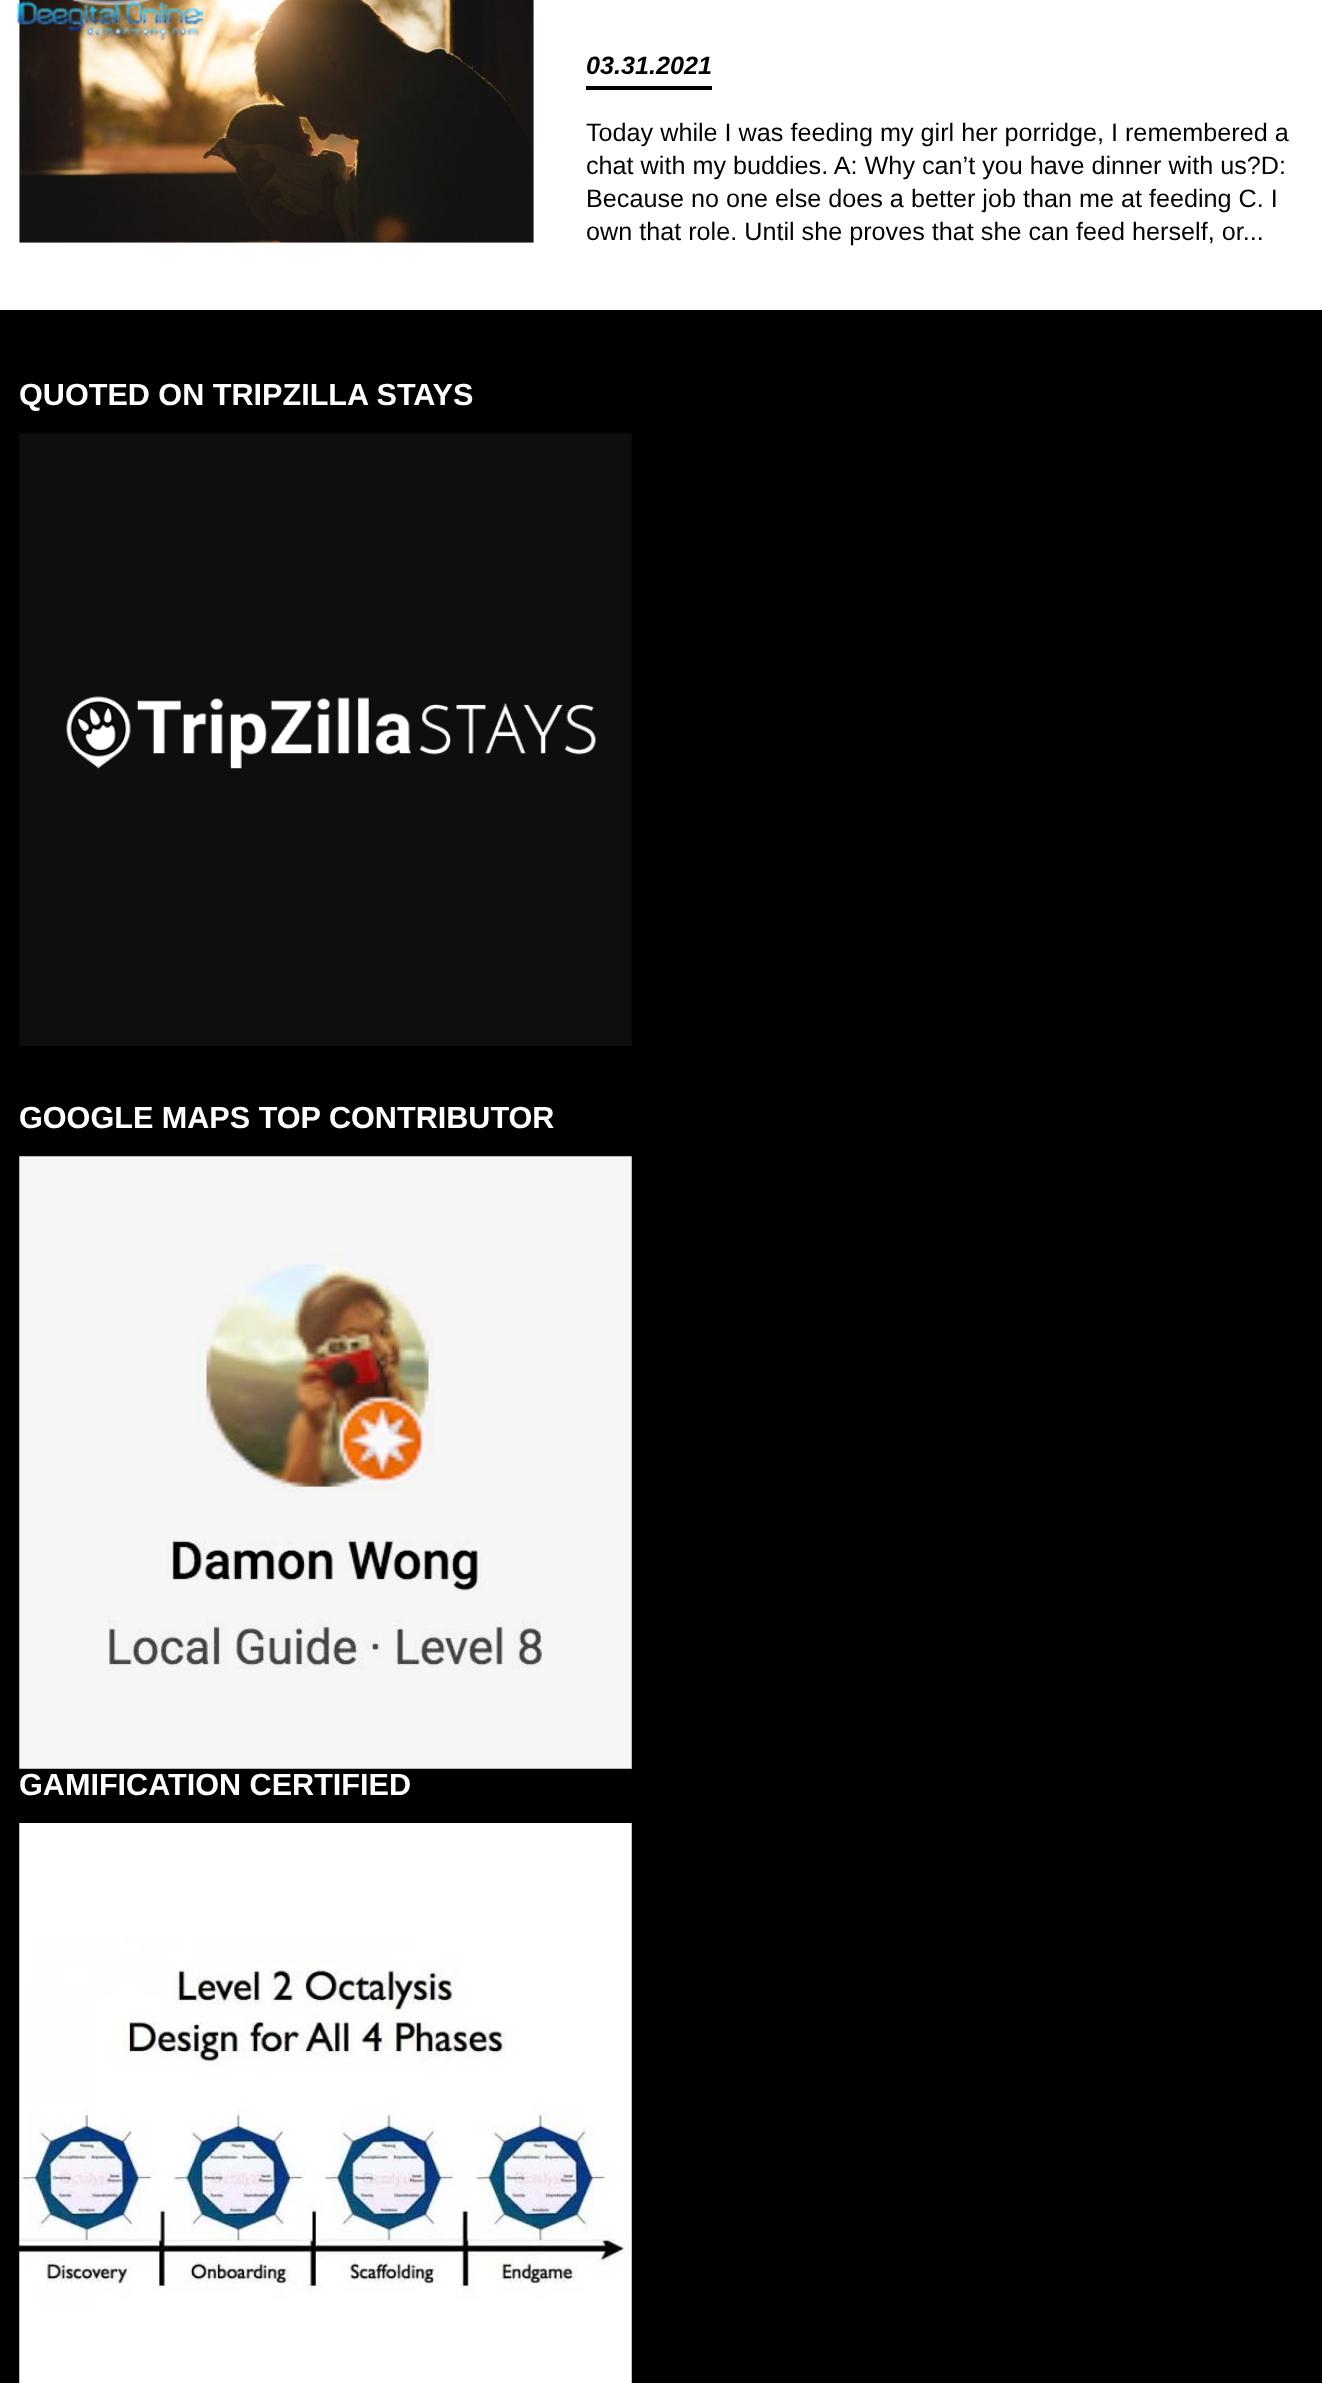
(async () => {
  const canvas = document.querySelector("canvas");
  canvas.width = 1322;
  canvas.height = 2383;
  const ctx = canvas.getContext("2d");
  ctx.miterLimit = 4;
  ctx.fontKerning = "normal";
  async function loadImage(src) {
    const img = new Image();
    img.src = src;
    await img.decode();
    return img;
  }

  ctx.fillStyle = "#ffffff";
  ctx.fillRect(0, 0, 1322, 2383);
  ctx.drawImage(await loadImage("img/2.png"), 19, 0, 515, 243);
  ctx.drawImage(await loadImage("img/1.png"), 17, 0, 186, 40);
  ctx.fillStyle = "#000000";
  ctx.fillRect(586, 86, 126, 4);
  ctx.fillRect(0, 310, 1322, 2073);
  ctx.drawImage(await loadImage("img/3.png"), 19, 433, 613, 613);
  ctx.drawImage(await loadImage("img/4.png"), 19, 1156, 613, 613);
  ctx.drawImage(await loadImage("img/5.png"), 19, 1823, 613, 560);
  ctx.font = "italic bold 25.2px Liberation Sans";
  ctx.fillText("03.31.2021", 586, 74);
  ctx.font = "25.2px Liberation Sans";
  for (const [text, x, y] of [
    ["Today while I was feeding my girl her porridge, I remembered a", 586, 141],
    ["chat with my buddies. A: Why can’t you have dinner with us?D:", 586, 174],
    ["Because no one else does a better job than me at feeding C. I", 586, 207],
    ["own that role. Until she proves that she can feed herself, or...", 586, 240],
  ]) {
    ctx.fillText(text, x, y);
  }
  ctx.font = "bold 30.6px Liberation Sans";
  ctx.fillStyle = "#ffffff";
  for (const [text, x, y] of [
    ["QUOTED ON TRIPZILLA STAYS", 19, 405],
    ["GOOGLE MAPS TOP CONTRIBUTOR", 19, 1128],
    ["GAMIFICATION CERTIFIED", 19, 1795],
  ]) {
    ctx.fillText(text, x, y);
  }
})();
